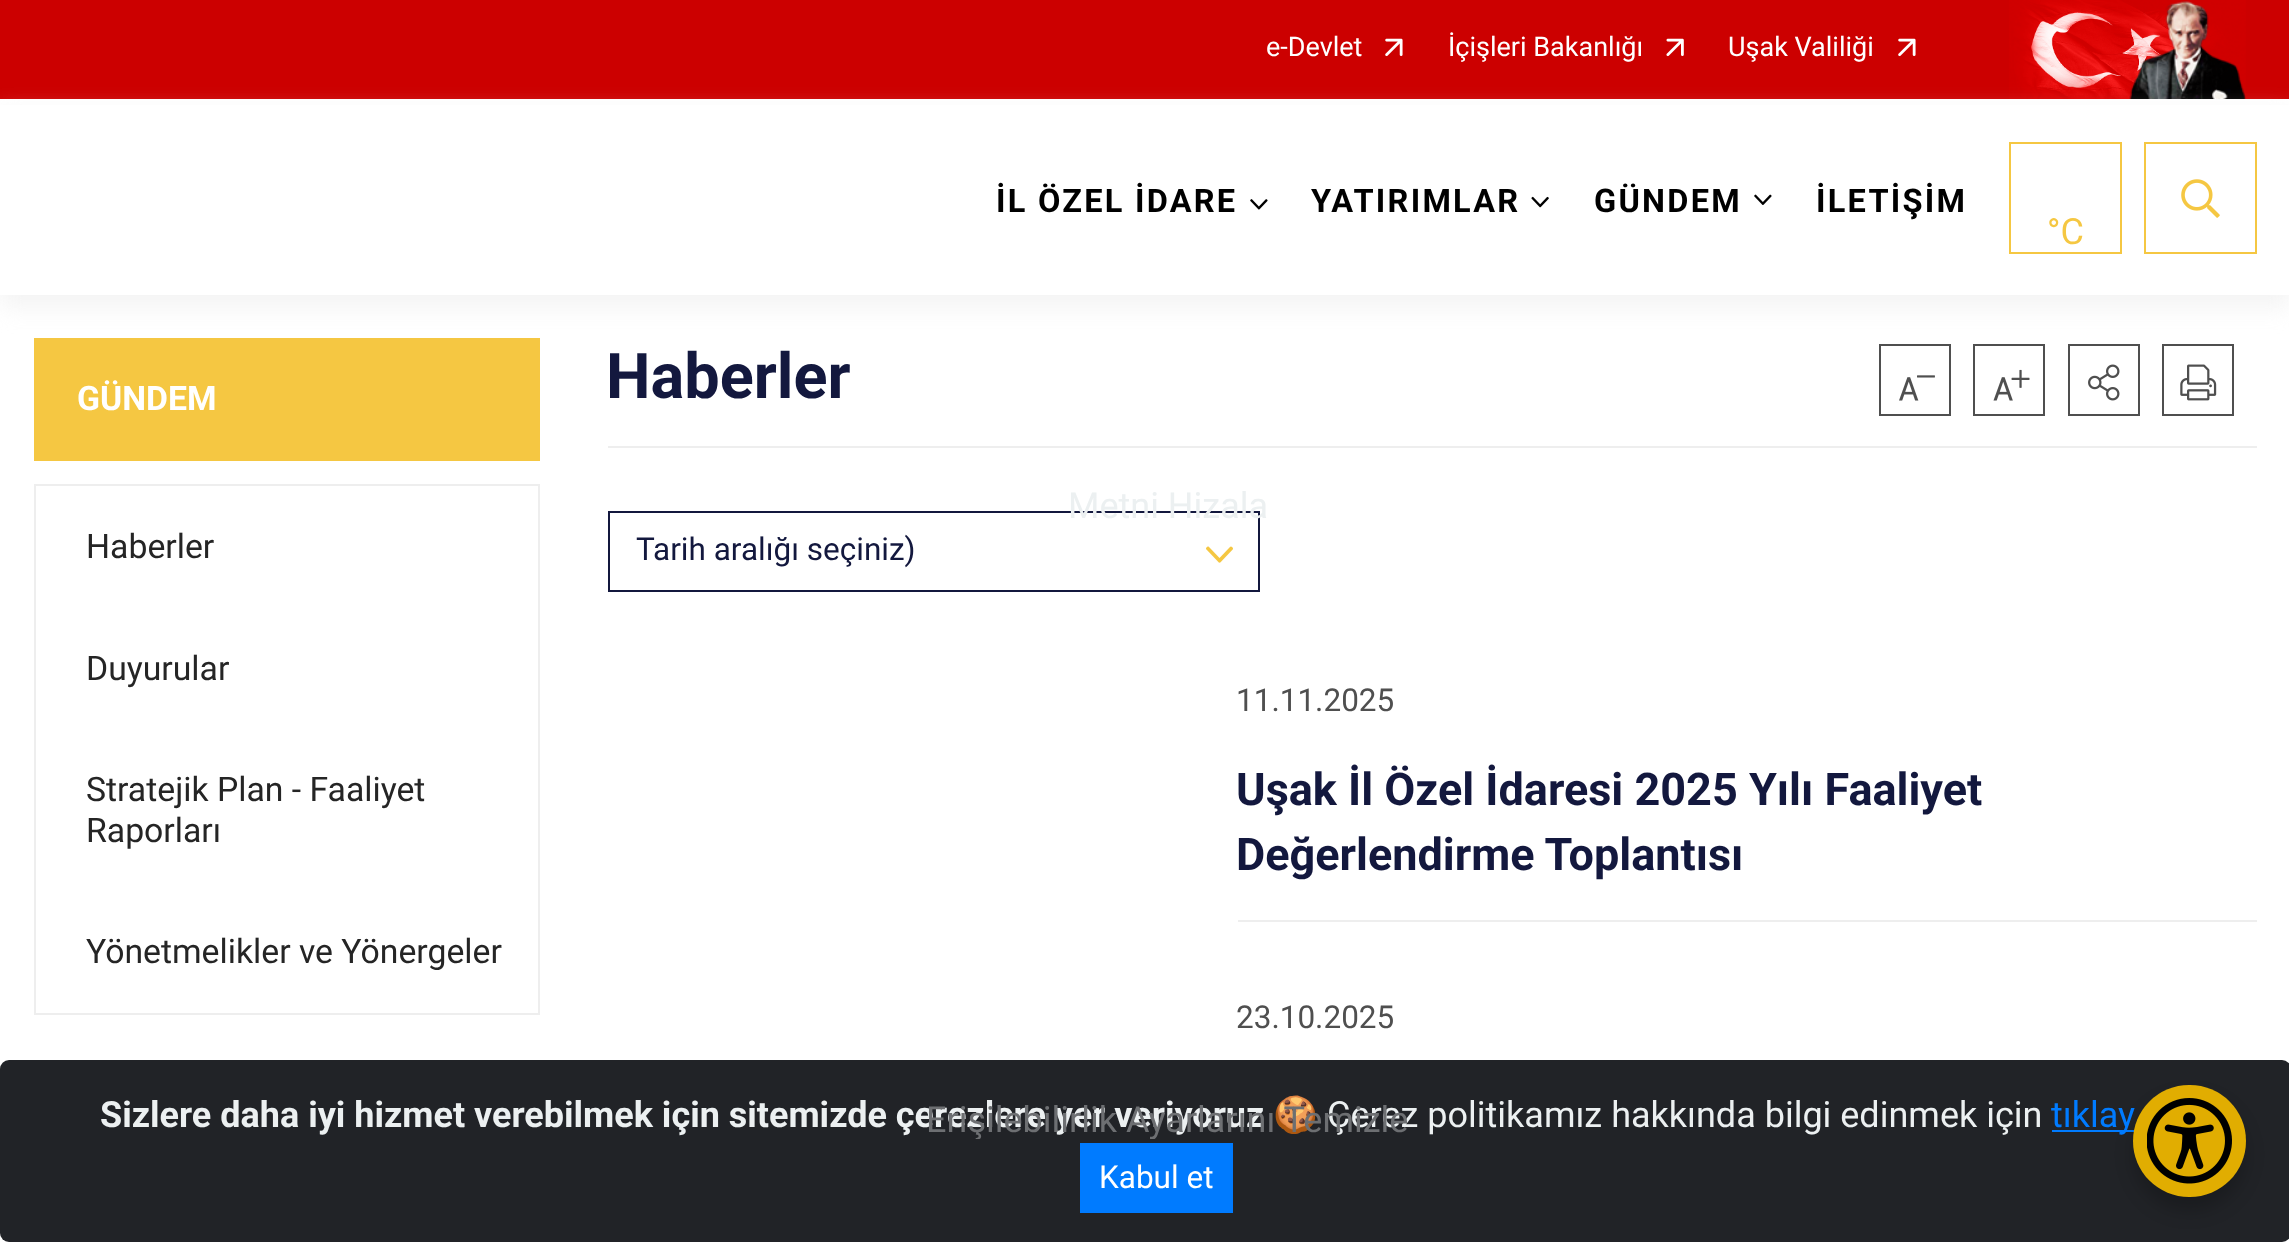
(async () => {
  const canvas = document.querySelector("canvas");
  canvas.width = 2289;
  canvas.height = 1242;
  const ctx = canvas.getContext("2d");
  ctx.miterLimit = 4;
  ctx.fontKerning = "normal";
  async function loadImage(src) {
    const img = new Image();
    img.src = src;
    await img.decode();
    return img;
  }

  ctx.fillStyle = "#ffffff";
  ctx.fillRect(0, 0, 2289, 1242);
  ctx.fillStyle = "#cc0000";
  ctx.fillRect(0, 0, 2289, 99);
  ctx.drawImage(await loadImage("img/1.png"), 1385, 38, 18, 19);
  ctx.drawImage(await loadImage("img/2.png"), 1666, 38, 18, 19);
  ctx.drawImage(await loadImage("img/1.png"), 1898, 38, 18, 19);
  ctx.drawImage(await loadImage("img/3.png"), 2009, 0, 237, 99);
  ctx.fillStyle = "#f5c742";
  ctx.fillRect(34, 338, 506, 123);
  ctx.fillStyle = "rgba(238, 238, 238, 0.62)";
  ctx.filter = "blur(11px)";
  ctx.beginPath();
  ctx.rect(0, 113, 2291, 195);
  ctx.fill();
  ctx.filter = "none";
  ctx.fillStyle = "#ffffff";
  ctx.fillRect(0, 105, 2289, 190);
  ctx.drawImage(await loadImage("img/4.png"), 1250, 199, 18, 11);
  ctx.drawImage(await loadImage("img/5.png"), 1531, 196, 18, 12);
  ctx.drawImage(await loadImage("img/6.png"), 1754, 194, 18, 11);
  ctx.strokeStyle = "#f5c742";
  ctx.lineWidth = 2;
  ctx.strokeRect(2010, 143, 111, 110);
  ctx.strokeRect(2145, 143, 111, 110);
  ctx.drawImage(await loadImage("img/7.png"), 2181, 179, 39, 39);
  ctx.strokeStyle = "#eeeeee";
  ctx.strokeRect(35, 485, 504, 529);
  ctx.fillStyle = "#eeeeee";
  ctx.fillRect(608, 446, 1649, 2);
  ctx.strokeStyle = "#4f4f4f";
  ctx.strokeRect(1880, 345, 70, 70);
  ctx.drawImage(await loadImage("img/8.png"), 1899, 375, 36, 26);
  ctx.strokeRect(1974, 345, 70, 70);
  ctx.drawImage(await loadImage("img/9.png"), 1993, 369, 37, 32);
  ctx.strokeRect(2069, 345, 70, 70);
  ctx.drawImage(await loadImage("img/10.png"), 2088, 364, 32, 37);
  ctx.strokeRect(2163, 345, 70, 70);
  ctx.drawImage(await loadImage("img/11.png"), 2180, 364, 37, 37);
  ctx.strokeStyle = "#13183e";
  ctx.strokeRect(609, 512, 650, 79);
  ctx.drawImage(await loadImage("img/12.png"), 1206, 546, 27, 17);
  ctx.fillRect(1238, 920, 1019, 2);
  ctx.fillStyle = "#212327";
  ctx.beginPath();
  ctx.roundRect(0, 1060, 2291, 182, 9);
  ctx.fill();
  ctx.fillStyle = "#007bff";
  ctx.fillRect(2052, 1130, 83, 2);
  ctx.fillStyle = "rgba(0, 0, 0, 0.2)";
  ctx.filter = "blur(9px)";
  ctx.beginPath();
  ctx.roundRect(2133, 1098, 113, 113, 56.5);
  ctx.fill();
  ctx.filter = "none";
  ctx.fillStyle = "#007bff";
  ctx.fillRect(1080, 1143, 153, 70);
  ctx.font = "27px Roboto";
  ctx.fillStyle = "#ffffff";
  for (const [text, x, y] of [
    ["e-Devlet", 1266, 56],
    ["İçişleri Bakanlığı", 1448, 56],
    ["Uşak Valiliği", 1728, 56],
  ]) {
    ctx.fillText(text, x, y);
  }
  ctx.letterSpacing = "2.25px";
  ctx.font = "bold 32.5px Roboto";
  ctx.fillStyle = "#000000";
  for (const [text, x, y] of [
    ["İL ÖZEL İDARE", 996, 212],
    ["YATIRIMLAR", 1311, 212],
    ["GÜNDEM", 1594, 212],
    ["İLETİŞİM", 1816, 212],
  ]) {
    ctx.fillText(text, x, y);
  }
  ctx.letterSpacing = "0px";
  ctx.font = "36px Roboto";
  ctx.fillStyle = "#f5c742";
  ctx.fillText("°C", 2047, 244);
  ctx.font = "bold 33.75px Roboto";
  ctx.fillStyle = "#ffffff";
  ctx.fillText("GÜNDEM", 77, 410);
  ctx.font = "33.75px Roboto";
  ctx.fillStyle = "#252525";
  for (const [text, x, y] of [
    ["Haberler", 86, 558],
    ["Duyurular", 86, 680],
    ["Stratejik Plan - Faaliyet", 86, 801],
    ["Raporları", 86, 842],
    ["Yönetmelikler ve Yönergeler", 86, 963],
  ]) {
    ctx.fillText(text, x, y);
  }
  ctx.font = "bold 63px Roboto";
  ctx.fillStyle = "#13183e";
  ctx.fillText("Haberler", 606, 398);
  ctx.font = "31.5px Roboto";
  ctx.fillText("Tarih aralığı seçiniz)", 636, 560);
  ctx.fillStyle = "#4f4f4f";
  ctx.fillText("11.11.2025", 1236, 711);
  ctx.font = "bold 45px Roboto";
  ctx.fillStyle = "#13183e";
  ctx.fillText("Uşak İl Özel İdaresi 2025 Yılı Faaliyet", 1236, 805);
  ctx.fillText("Değerlendirme Toplantısı", 1236, 870);
  ctx.font = "31.5px Roboto";
  ctx.fillStyle = "#4f4f4f";
  ctx.fillText("23.10.2025", 1236, 1028);
  ctx.font = "36px Roboto";
  ctx.fillStyle = "#ecf0f1";
  ctx.fillText("Metni Hizala", 1068, 518);
  ctx.font = "bold 36px Roboto";
  ctx.fillText("Sizlere daha iyi hizmet verebilmek için sitemizde çerezlere yer veriyoruz", 100, 1127);
  ctx.font = "36px Noto Color Emoji";
  ctx.fillText("🍪", 1273, 1127);
  ctx.font = "36px Roboto";
  ctx.fillText("Çerez politikamız hakkında bilgi edinmek için", 1327, 1127);
  ctx.save();
  ctx.beginPath();
  ctx.roundRect(25, 149, 2241, 990, 16);
  ctx.clip();
  ctx.fillStyle = "#6d6f72";
  ctx.fillText("Erişilebilirlik Ayarlarını Temizle", 926, 1132);
  ctx.restore();
  ctx.fillStyle = "#007bff";
  ctx.fillText("tıklay", 2051, 1127);
  ctx.fillStyle = "#e1ad01";
  ctx.beginPath();
  ctx.roundRect(2133, 1085, 113, 112, 56);
  ctx.fill();
  ctx.drawImage(await loadImage("img/13.png"), 2147, 1098, 85, 86);
  ctx.font = "31.5px Roboto";
  ctx.fillStyle = "#ffffff";
  ctx.fillText("Kabul et", 1099, 1188);
})();
